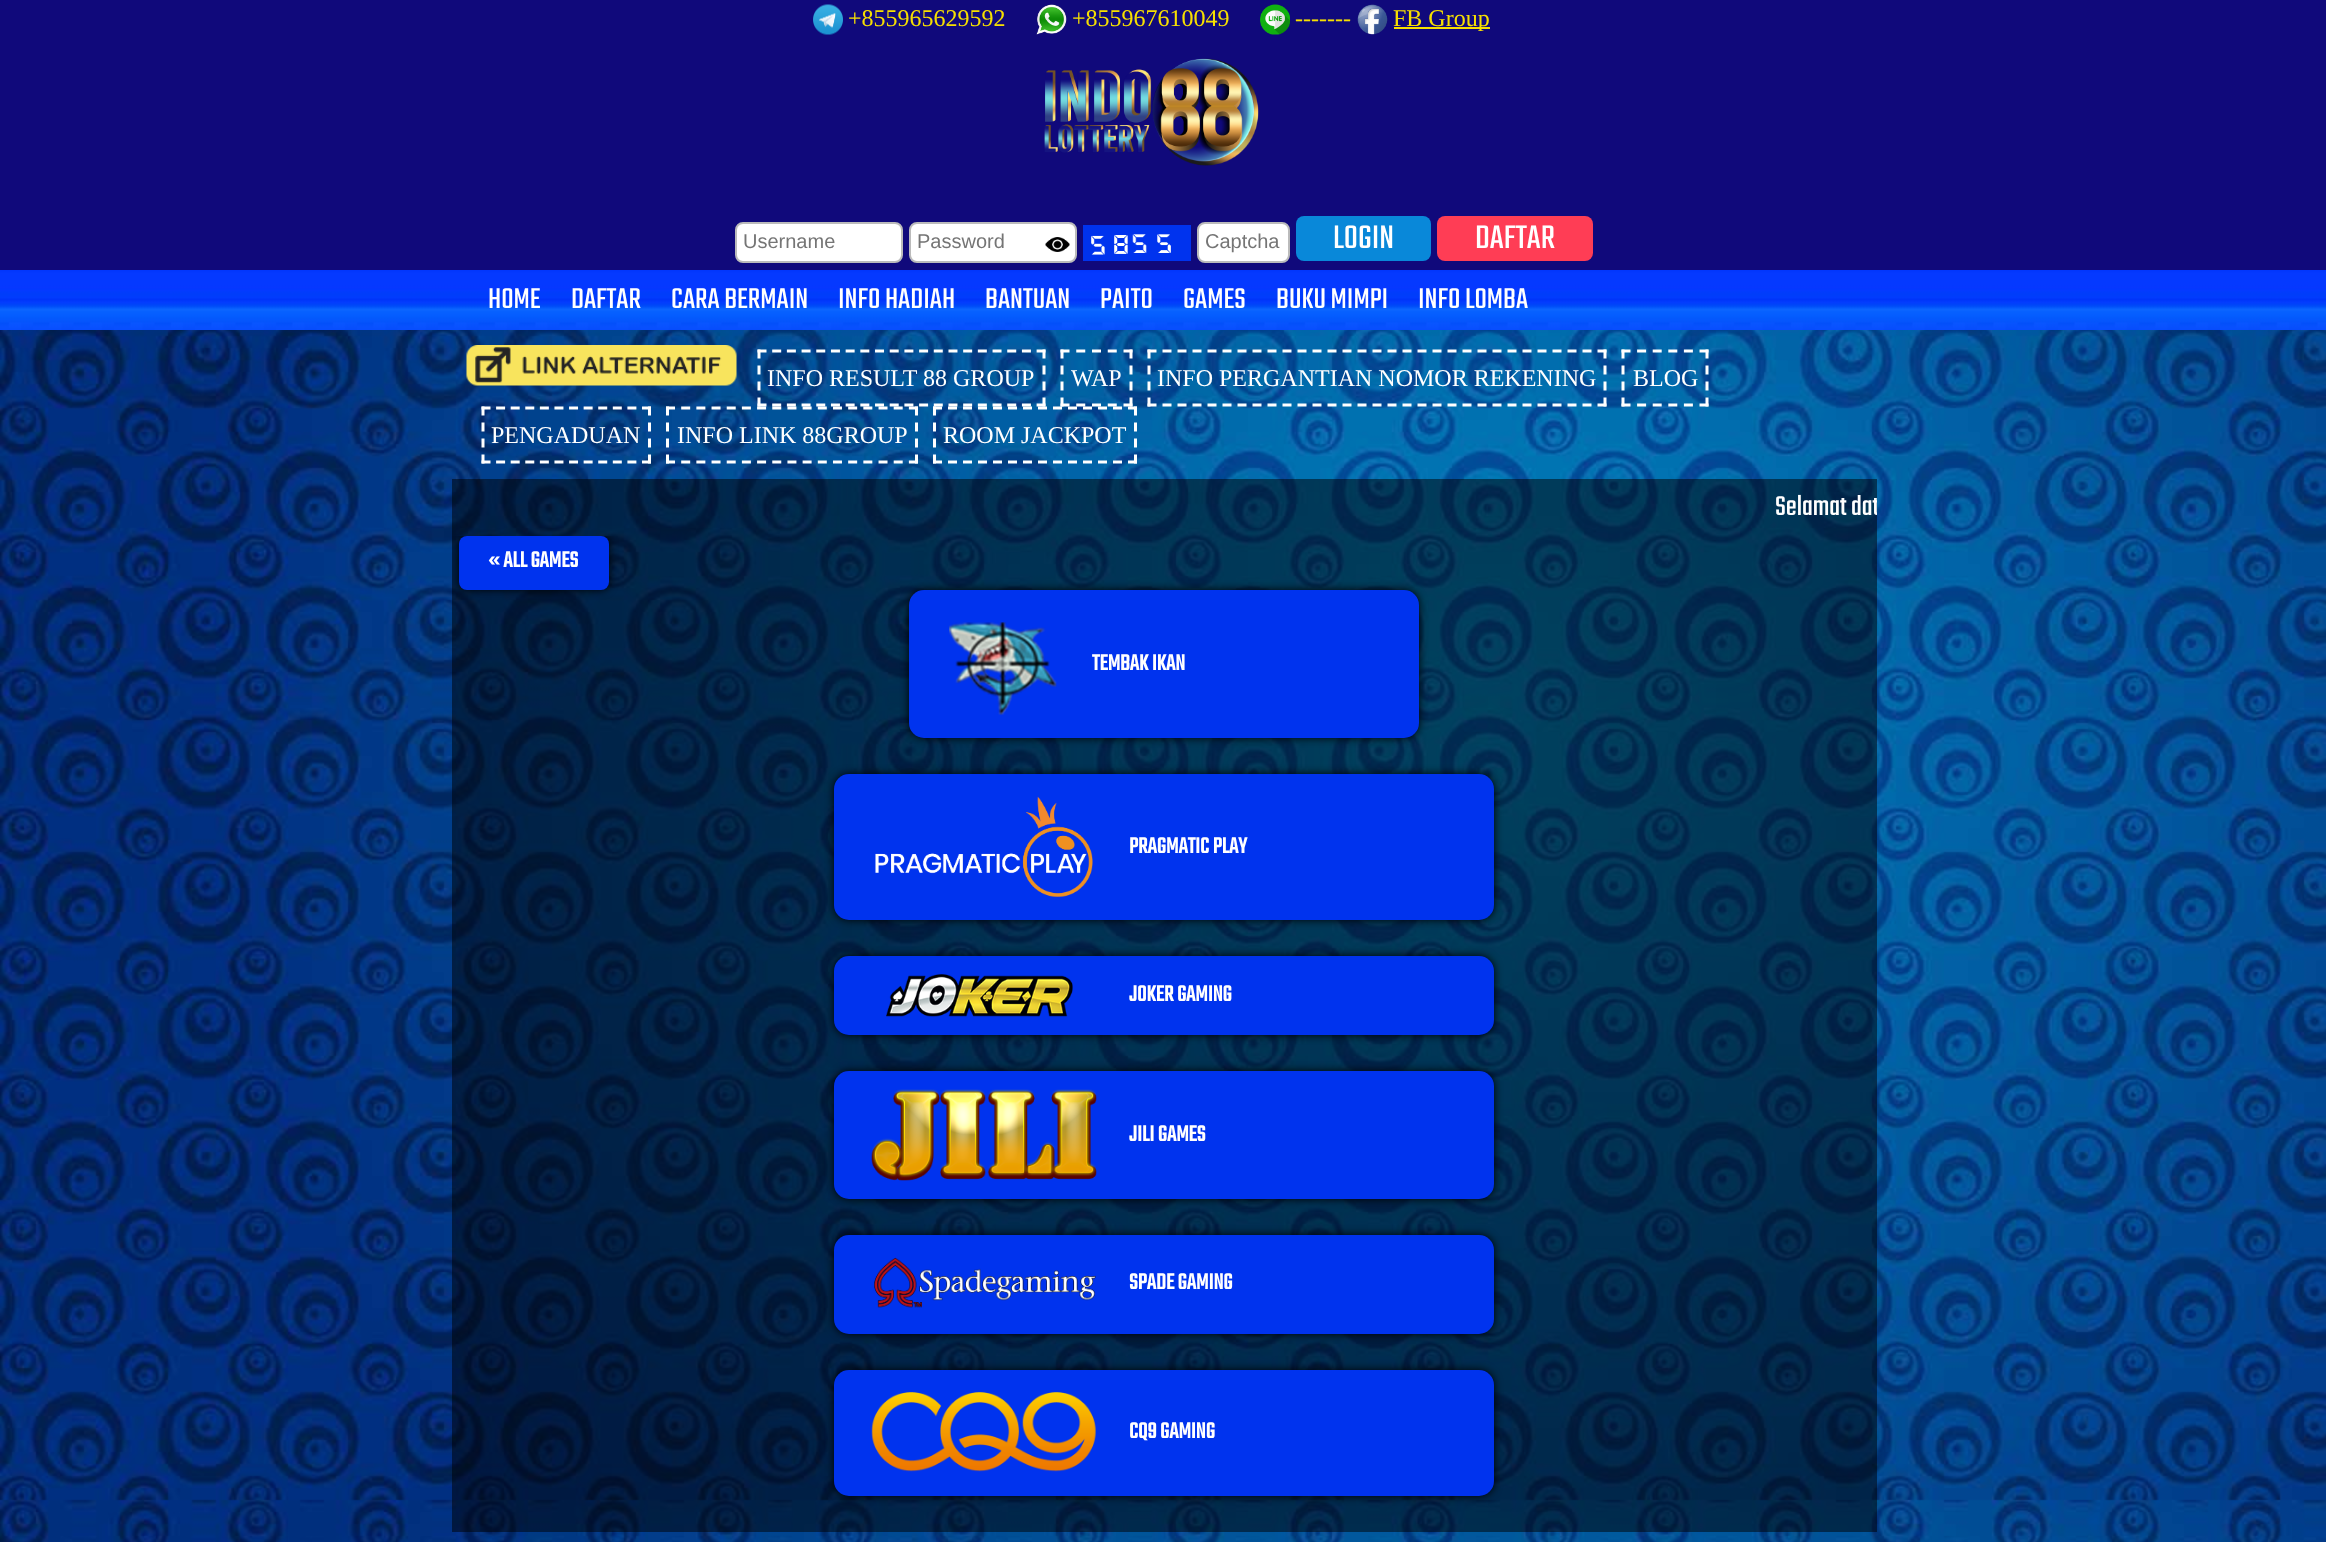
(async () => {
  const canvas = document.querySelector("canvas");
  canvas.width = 2326;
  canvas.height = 1542;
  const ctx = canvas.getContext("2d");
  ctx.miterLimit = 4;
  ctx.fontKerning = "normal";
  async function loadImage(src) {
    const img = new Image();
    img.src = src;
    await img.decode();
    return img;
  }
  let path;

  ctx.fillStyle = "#ffffff";
  ctx.fillRect(0, 0, 2326, 1542);
  ctx.drawImage(await loadImage("img/1.png"), 0, 330, 2326, 1212);
  ctx.fillStyle = "#10097b";
  ctx.fillRect(0, 0, 2326, 270);
  ctx.drawImage(await loadImage("img/2.png"), 813, 4, 30, 31);
  ctx.drawImage(await loadImage("img/3.png"), 1036, 4, 31, 31);
  ctx.drawImage(await loadImage("img/4.png"), 1260, 4, 30, 31);
  ctx.drawImage(await loadImage("img/5.png"), 1357, 4, 31, 31);
  ctx.fillStyle = "#f7e000";
  ctx.fillRect(1394, 27, 96, 2);
  ctx.drawImage(await loadImage("img/6.png"), 1044, 58, 215, 108);
  ctx.fillStyle = "#ffffff";
  ctx.beginPath();
  ctx.roundRect(736, 223, 166, 39, 7);
  ctx.fill();
  ctx.strokeStyle = "#bbbbbb";
  ctx.lineWidth = 2;
  ctx.stroke();
  ctx.beginPath();
  ctx.roundRect(910, 223, 166, 39, 7);
  ctx.fill();
  ctx.stroke();
  ctx.drawImage(await loadImage("img/7.png"), 1045, 237, 25, 15);
  ctx.drawImage(await loadImage("img/8.png"), 1083, 225, 108, 36);
  ctx.beginPath();
  ctx.roundRect(1198, 223, 91, 39, 7);
  ctx.fill();
  ctx.stroke();
  ctx.fillStyle = "#0988d9";
  ctx.beginPath();
  ctx.roundRect(1296, 216, 135, 45, 8);
  ctx.fill();
  ctx.fillStyle = "#ff3d55";
  ctx.beginPath();
  ctx.roundRect(1437, 216, 156, 45, 8);
  ctx.fill();
  ctx.drawImage(await loadImage("img/9.png"), 0, 270, 2326, 60);
  ctx.drawImage(await loadImage("img/10.png"), 466, 345, 271, 41);
  path = new Path2D("M757.5 351H1045.5");
  ctx.strokeStyle = "#ffffff";
  ctx.lineWidth = 3;
  ctx.setLineDash([9, 5.69]);
  ctx.stroke(path);
  path = new Path2D("M1044 349.5V406.5");
  ctx.setLineDash([9, 7]);
  ctx.stroke(path);
  path = new Path2D("M757.5 405H1045.5");
  ctx.setLineDash([9, 5.69]);
  ctx.stroke(path);
  path = new Path2D("M759 349.5V406.5");
  ctx.setLineDash([9, 7]);
  ctx.stroke(path);
  path = new Path2D("M1060.5 351H1132.5");
  ctx.setLineDash([9, 6.75]);
  ctx.stroke(path);
  path = new Path2D("M1131 349.5V406.5");
  ctx.setLineDash([9, 7]);
  ctx.stroke(path);
  path = new Path2D("M1060.5 405H1132.5");
  ctx.setLineDash([9, 6.75]);
  ctx.stroke(path);
  path = new Path2D("M1062 349.5V406.5");
  ctx.setLineDash([9, 7]);
  ctx.stroke(path);
  path = new Path2D("M1147.5 351H1606.5");
  ctx.setLineDash([9, 6]);
  ctx.stroke(path);
  path = new Path2D("M1605 349.5V406.5");
  ctx.setLineDash([9, 7]);
  ctx.stroke(path);
  path = new Path2D("M1147.5 405H1606.5");
  ctx.setLineDash([9, 6]);
  ctx.stroke(path);
  path = new Path2D("M1149 349.5V406.5");
  ctx.setLineDash([9, 7]);
  ctx.stroke(path);
  path = new Path2D("M1621.5 351H1708.5");
  ctx.setLineDash([9, 6.6]);
  ctx.stroke(path);
  path = new Path2D("M1707 349.5V406.5");
  ctx.setLineDash([9, 7]);
  ctx.stroke(path);
  path = new Path2D("M1621.5 405H1708.5");
  ctx.setLineDash([9, 6.6]);
  ctx.stroke(path);
  path = new Path2D("M1623 349.5V406.5");
  ctx.setLineDash([9, 7]);
  ctx.stroke(path);
  path = new Path2D("M481.5 408H651");
  ctx.setLineDash([9, 5.59]);
  ctx.stroke(path);
  path = new Path2D("M649.5 406.5V463.5");
  ctx.setLineDash([9, 7]);
  ctx.stroke(path);
  path = new Path2D("M481.5 462H651");
  ctx.setLineDash([9, 5.59]);
  ctx.stroke(path);
  path = new Path2D("M483 406.5V463.5");
  ctx.setLineDash([9, 7]);
  ctx.stroke(path);
  path = new Path2D("M666 408H918");
  ctx.setLineDash([9, 6.18]);
  ctx.stroke(path);
  path = new Path2D("M916.5 406.5V463.5");
  ctx.setLineDash([9, 7]);
  ctx.stroke(path);
  path = new Path2D("M666 462H918");
  ctx.setLineDash([9, 6.18]);
  ctx.stroke(path);
  path = new Path2D("M667.5 406.5V463.5");
  ctx.setLineDash([9, 7]);
  ctx.stroke(path);
  path = new Path2D("M933 408H1137");
  ctx.setLineDash([9, 6]);
  ctx.stroke(path);
  path = new Path2D("M1135.5 406.5V463.5");
  ctx.setLineDash([9, 7]);
  ctx.stroke(path);
  path = new Path2D("M933 462H1137");
  ctx.setLineDash([9, 6]);
  ctx.stroke(path);
  path = new Path2D("M934.5 406.5V463.5");
  ctx.setLineDash([9, 7]);
  ctx.stroke(path);
  ctx.fillStyle = "rgba(0, 0, 0, 0.5)";
  ctx.fillRect(452, 479, 1425, 57);
  ctx.fillRect(452, 536, 1425, 996);
  ctx.save();
  ctx.beginPath();
  ctx.rect(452, 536, 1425, 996);
  ctx.clip();
  ctx.fillStyle = "#000000";
  ctx.filter = "blur(4px)";
  ctx.beginPath();
  ctx.roundRect(459, 536, 150, 54, 8);
  ctx.fill();
  ctx.filter = "none";
  ctx.restore();
  ctx.fillStyle = "#0033ee";
  ctx.beginPath();
  ctx.roundRect(459, 536, 150, 54, 8);
  ctx.fill();
  ctx.fillStyle = "#000000";
  ctx.filter = "blur(4px)";
  ctx.beginPath();
  ctx.roundRect(909, 590, 510, 148, 15);
  ctx.fill();
  ctx.filter = "none";
  ctx.fillStyle = "#0033ee";
  ctx.beginPath();
  ctx.roundRect(909, 590, 510, 148, 15);
  ctx.fill();
  ctx.drawImage(await loadImage("img/11.png"), 949, 622, 108, 93);
  ctx.fillStyle = "#000000";
  ctx.filter = "blur(4px)";
  ctx.beginPath();
  ctx.roundRect(834, 774, 660, 146, 15);
  ctx.fill();
  ctx.filter = "none";
  ctx.fillStyle = "#0033ee";
  ctx.beginPath();
  ctx.roundRect(834, 774, 660, 146, 15);
  ctx.fill();
  ctx.drawImage(await loadImage("img/12.png"), 875, 796, 218, 102);
  ctx.fillStyle = "#000000";
  ctx.filter = "blur(4px)";
  ctx.beginPath();
  ctx.roundRect(834, 956, 660, 79, 15);
  ctx.fill();
  ctx.filter = "none";
  ctx.fillStyle = "#0033ee";
  ctx.beginPath();
  ctx.roundRect(834, 956, 660, 79, 15);
  ctx.fill();
  ctx.drawImage(await loadImage("img/13.png"), 886, 974, 187, 43);
  ctx.fillStyle = "#000000";
  ctx.filter = "blur(4px)";
  ctx.beginPath();
  ctx.roundRect(834, 1071, 660, 128, 15);
  ctx.fill();
  ctx.filter = "none";
  ctx.fillStyle = "#0033ee";
  ctx.beginPath();
  ctx.roundRect(834, 1071, 660, 128, 15);
  ctx.fill();
  ctx.drawImage(await loadImage("img/14.png"), 871, 1089, 226, 92);
  ctx.fillStyle = "#000000";
  ctx.filter = "blur(4px)";
  ctx.beginPath();
  ctx.roundRect(834, 1235, 660, 99, 15);
  ctx.fill();
  ctx.filter = "none";
  ctx.fillStyle = "#0033ee";
  ctx.beginPath();
  ctx.roundRect(834, 1235, 660, 99, 15);
  ctx.fill();
  ctx.drawImage(await loadImage("img/15.png"), 874, 1257, 222, 51);
  ctx.fillStyle = "#000000";
  ctx.filter = "blur(4px)";
  ctx.beginPath();
  ctx.roundRect(834, 1370, 660, 126, 15);
  ctx.fill();
  ctx.filter = "none";
  ctx.fillStyle = "#0033ee";
  ctx.beginPath();
  ctx.roundRect(834, 1370, 660, 126, 15);
  ctx.fill();
  ctx.drawImage(await loadImage("img/16.png"), 871, 1392, 225, 80);
  ctx.font = "24px Liberation Serif";
  ctx.fillStyle = "#f7e000";
  for (const [text, x, y] of [
    ["+855965629592", 848, 26],
    ["+855967610049", 1072, 26],
    ["-------", 1295, 26],
    ["FB Group", 1393, 26],
  ]) {
    ctx.fillText(text, x, y);
  }
  ctx.font = "20px Liberation Sans";
  ctx.fillStyle = "#757575";
  for (const [text, x, y] of [
    ["Username", 743, 248],
    ["Password", 917, 248],
    ["Captcha", 1205, 248],
  ]) {
    ctx.fillText(text, x, y);
  }
  ctx.font = "300 36px Teko";
  ctx.fillStyle = "#ffffff";
  ctx.fillText("LOGIN", 1333, 248);
  ctx.fillText("DAFTAR", 1475, 248);
  ctx.font = "300 31.5px Teko";
  for (const [text, x, y] of [
    ["HOME", 488, 308],
    ["DAFTAR", 571, 308],
    ["CARA BERMAIN", 671, 308],
    ["INFO HADIAH", 838, 308],
    ["BANTUAN", 985, 308],
    ["PAITO", 1100, 308],
    ["GAMES", 1183, 308],
    ["BUKU MIMPI", 1276, 308],
    ["INFO LOMBA", 1418, 308],
  ]) {
    ctx.fillText(text, x, y);
  }
  ctx.font = "24px Liberation Serif";
  for (const [text, x, y] of [
    ["INFO RESULT 88 GROUP", 767, 386],
    ["WAP", 1071, 386],
    ["INFO PERGANTIAN NOMOR REKENING", 1157, 386],
    ["BLOG", 1633, 386],
    ["PENGADUAN", 491, 443],
    ["INFO LINK 88GROUP", 677, 443],
    ["ROOM JACKPOT", 943, 443],
  ]) {
    ctx.fillText(text, x, y);
  }
  ctx.save();
  ctx.beginPath();
  ctx.rect(452, 494, 1425, 30);
  ctx.clip();
  ctx.font = "300 30px Teko";
  ctx.fillText("Selamat dat", 1775, 515);
  ctx.restore();
  ctx.font = "bold 24px Teko";
  for (const [text, x, y] of [
    ["« ALL GAMES", 488, 567],
    ["TEMBAK IKAN", 1092, 670],
    ["PRAGMATIC PLAY", 1129, 853],
    ["JOKER GAMING", 1129, 1001],
    ["JILI GAMES", 1129, 1141],
    ["SPADE GAMING", 1129, 1289],
    ["CQ9 GAMING", 1129, 1438],
  ]) {
    ctx.fillText(text, x, y);
  }
})();
